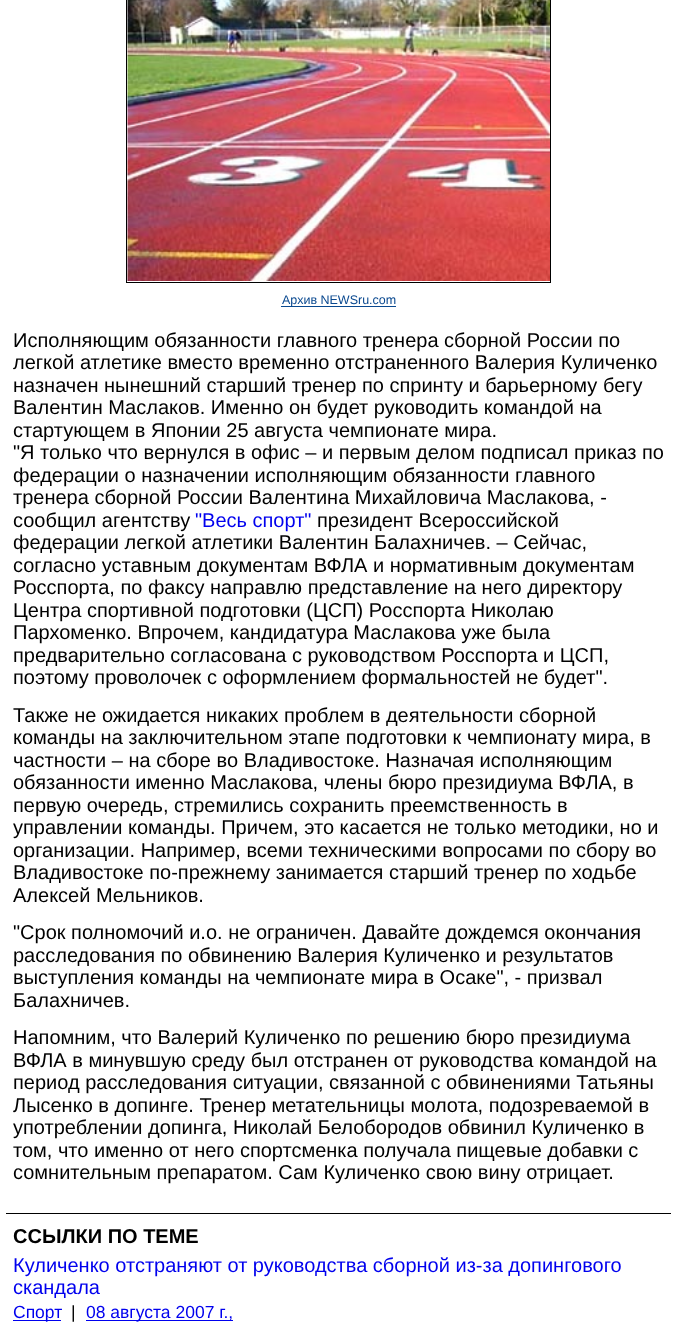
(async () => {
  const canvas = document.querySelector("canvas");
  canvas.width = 677;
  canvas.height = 1344;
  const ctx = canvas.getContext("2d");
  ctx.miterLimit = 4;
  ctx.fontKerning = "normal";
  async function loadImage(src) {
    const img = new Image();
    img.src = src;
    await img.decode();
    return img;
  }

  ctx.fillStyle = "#ffffff";
  ctx.fillRect(0, 0, 677, 1344);
  ctx.fillStyle = "#000000";
  ctx.fillRect(6, 1213, 665, 1);
  ctx.strokeStyle = "#000000";
  ctx.strokeRect(126.5, -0.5, 424, 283);
  ctx.drawImage(await loadImage("img/1.png"), 127, 0, 423, 281);
  for (const [x, y, w, h, color] of [
    [281, 306, 115, 1, "#09488f"],
    [13, 1320, 48, 1, "#0000ee"],
    [86, 1320, 147, 1, "#0000ee"],
  ]) {
    ctx.fillStyle = color;
    ctx.fillRect(x, y, w, h);
  }
  ctx.font = "12.5px Liberation Sans";
  ctx.fillStyle = "#09488f";
  ctx.fillText("Архив NEWSru.com", 282, 304);
  ctx.font = "20px Liberation Sans";
  ctx.fillStyle = "#000000";
  for (const [text, x, y] of [
    ["Исполняющим обязанности главного тренера сборной России по", 13, 347],
    ["легкой атлетике вместо временно отстраненного Валерия Куличенко", 13, 369],
    ["назначен нынешний старший тренер по спринту и барьерному бегу", 13, 392],
    ["Валентин Маслаков. Именно он будет руководить командой на", 13, 414],
    ["стартующем в Японии 25 августа чемпионате мира.", 13, 437],
    ["\"Я только что вернулся в офис – и первым делом подписал приказ по", 13, 459],
    ["федерации о назначении исполняющим обязанности главного", 13, 482],
    ["тренера сборной России Валентина Михайловича Маслакова, -", 13, 504],
    ["сообщил агентству", 13, 527],
  ]) {
    ctx.fillText(text, x, y);
  }
  ctx.fillStyle = "#0000ee";
  ctx.fillText("\"Весь спорт\"", 195, 527);
  ctx.fillStyle = "#000000";
  for (const [text, x, y] of [
    ["президент Всероссийской", 317, 527],
    ["федерации легкой атлетики Валентин Балахничев. – Сейчас,", 13, 549],
    ["согласно уставным документам ВФЛА и нормативным документам", 13, 572],
    ["Росспорта, по факсу направлю представление на него директору", 13, 594],
    ["Центра спортивной подготовки (ЦСП) Росспорта Николаю", 13, 617],
    ["Пархоменко. Впрочем, кандидатура Маслакова уже была", 13, 639],
    ["предварительно согласована с руководством Росспорта и ЦСП,", 13, 662],
    ["поэтому проволочек с оформлением формальностей не будет\".", 13, 684],
    ["Также не ожидается никаких проблем в деятельности сборной", 13, 722],
    ["команды на заключительном этапе подготовки к чемпионату мира, в", 13, 744],
    ["частности – на сборе во Владивостоке. Назначая исполняющим", 13, 767],
    ["обязанности именно Маслакова, члены бюро президиума ВФЛА, в", 13, 789],
    ["первую очередь, стремились сохранить преемственность в", 13, 812],
    ["управлении команды. Причем, это касается не только методики, но и", 13, 834],
    ["организации. Например, всеми техническими вопросами по сбору во", 13, 857],
    ["Владивостоке по-прежнему занимается старший тренер по ходьбе", 13, 879],
    ["Алексей Мельников.", 13, 902],
    ["\"Срок полномочий и.о. не ограничен. Давайте дождемся окончания", 13, 939],
    ["расследования по обвинению Валерия Куличенко и результатов", 13, 962],
    ["выступления команды на чемпионате мира в Осаке\", - призвал", 13, 984],
    ["Балахничев.", 13, 1007],
    ["Напомним, что Валерий Куличенко по решению бюро президиума", 13, 1044],
    ["ВФЛА в минувшую среду был отстранен от руководства командой на", 13, 1067],
    ["период расследования ситуации, связанной с обвинениями Татьяны", 13, 1089],
    ["Лысенко в допинге. Тренер метательницы молота, подозреваемой в", 13, 1112],
    ["употреблении допинга, Николай Белобородов обвинил Куличенко в", 13, 1134],
    ["том, что именно от него спортсменка получала пищевые добавки с", 13, 1157],
    ["сомнительным препаратом. Сам Куличенко свою вину отрицает.", 13, 1179],
  ]) {
    ctx.fillText(text, x, y);
  }
  ctx.font = "bold 20px Liberation Sans";
  ctx.fillText("ССЫЛКИ ПО ТЕМЕ", 13, 1243);
  ctx.font = "20px Liberation Sans";
  ctx.fillStyle = "#0000ee";
  ctx.fillText("Куличенко отстраняют от руководства сборной из-за допингового", 13, 1272);
  ctx.fillText("скандала", 13, 1294);
  ctx.font = "17.5px Liberation Sans";
  ctx.fillText("Спорт", 13, 1318);
  ctx.fillStyle = "#000000";
  ctx.fillText("|", 71, 1318);
  ctx.fillStyle = "#0000ee";
  ctx.fillText("08 августа 2007 г.,", 86, 1318);
})();
